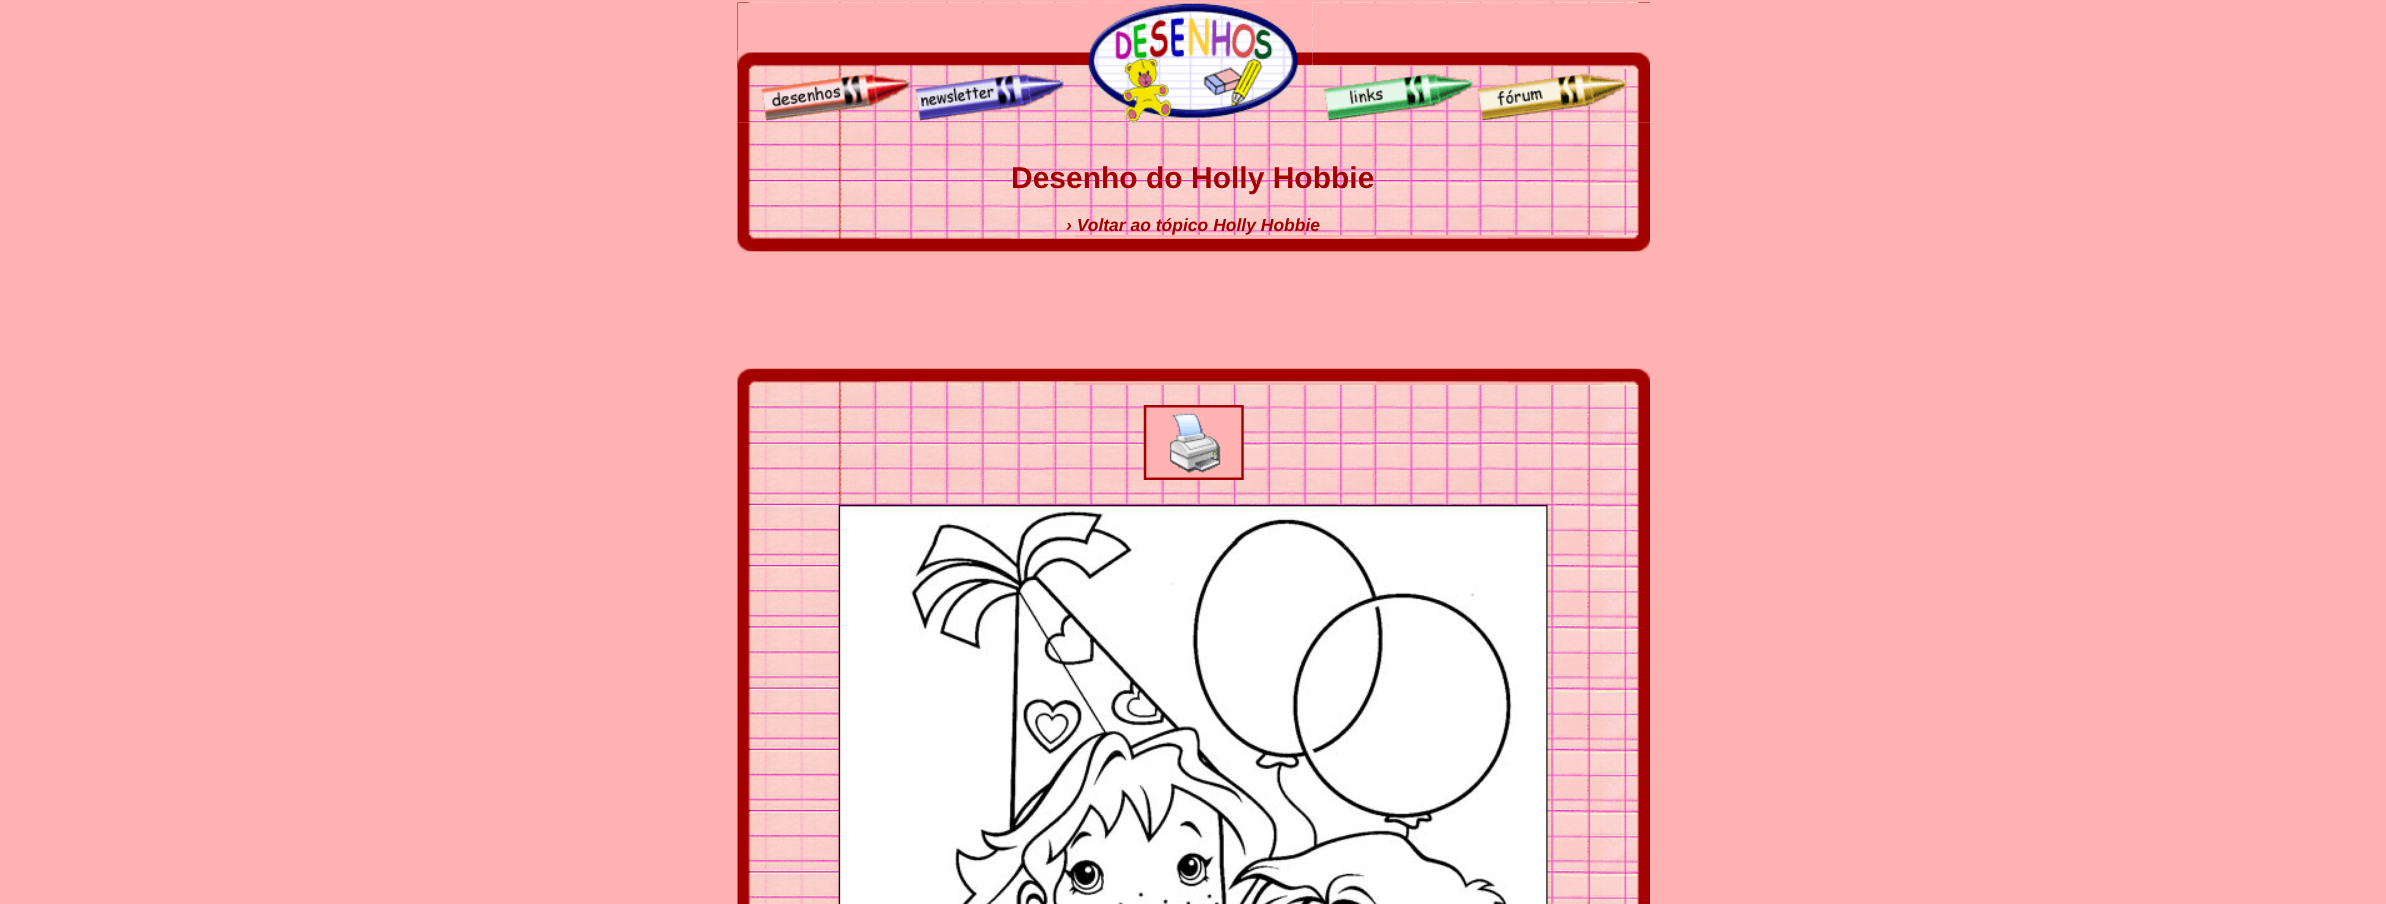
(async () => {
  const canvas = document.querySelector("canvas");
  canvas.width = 2386;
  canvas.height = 904;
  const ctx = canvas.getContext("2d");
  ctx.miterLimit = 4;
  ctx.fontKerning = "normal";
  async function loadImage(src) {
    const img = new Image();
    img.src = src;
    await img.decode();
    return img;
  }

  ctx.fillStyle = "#feb2b2";
  ctx.fillRect(0, 0, 2386, 904);
  ctx.drawImage(await loadImage("img/1.png"), 737, 2, 913, 121);
  ctx.fillRect(738, 3, 337, 47);
  ctx.drawImage(await loadImage("img/7.png"), 737, 122, 913, 113);
  ctx.drawImage(await loadImage("img/2.png"), 1075, 2, 238, 121);
  ctx.fillRect(1313, 3, 337, 47);
  ctx.drawImage(await loadImage("img/3.png"), 737, 50, 338, 19);
  ctx.drawImage(await loadImage("img/4.png"), 1312, 50, 338, 19);
  ctx.drawImage(await loadImage("img/5.png"), 761, 73, 303, 49);
  ctx.drawImage(await loadImage("img/6.png"), 1323, 73, 304, 49);
  ctx.drawImage(await loadImage("img/8.png"), 737, 235, 913, 17);
  ctx.drawImage(await loadImage("img/9.png"), 737, 368, 913, 17);
  ctx.drawImage(await loadImage("img/10.png"), 737, 385, 913, 519);
  ctx.drawImage(await loadImage("img/11.png"), 1143, 405, 101, 75);
  ctx.drawImage(await loadImage("img/12.png"), 838, 505, 710, 399);
  ctx.font = "bold 30px Liberation Sans";
  ctx.fillStyle = "#a30000";
  ctx.fillText("Desenho do Holly Hobbie", 1011, 188);
  ctx.font = "italic bold 17.5px Liberation Sans";
  ctx.fillText("› Voltar ao tópico Holly Hobbie", 1066, 231);
})();
